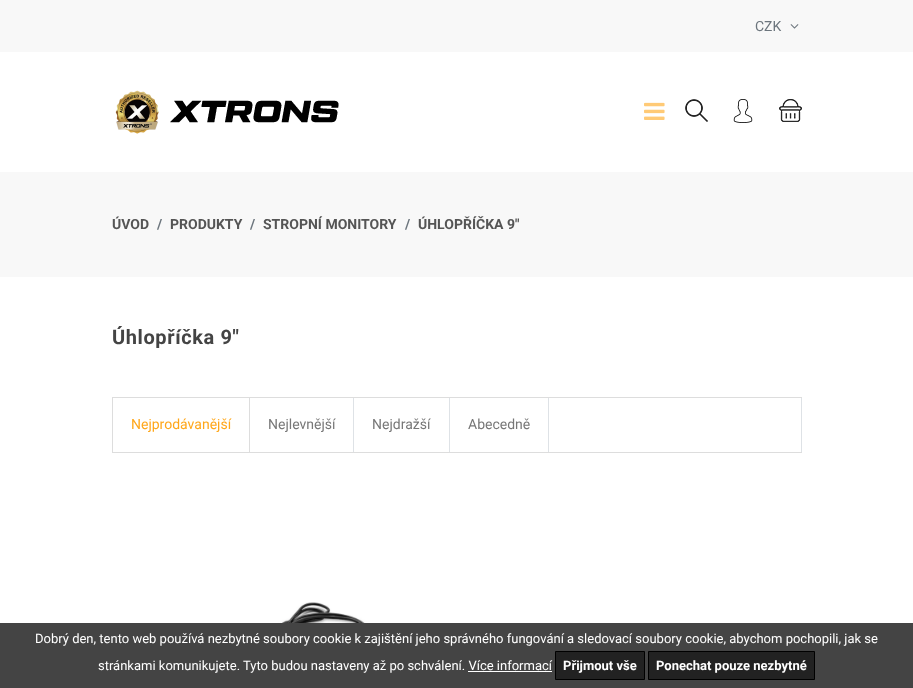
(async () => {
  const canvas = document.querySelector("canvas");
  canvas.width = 913;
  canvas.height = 688;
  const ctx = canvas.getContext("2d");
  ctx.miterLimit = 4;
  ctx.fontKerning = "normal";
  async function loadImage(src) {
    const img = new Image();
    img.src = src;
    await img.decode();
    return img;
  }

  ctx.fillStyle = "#ffffff";
  ctx.fillRect(0, 0, 913, 688);
  ctx.fillStyle = "#f8f8f8";
  ctx.fillRect(0, 0, 913, 52);
  ctx.drawImage(await loadImage("img/1.png"), 790, 24, 9, 5);
  ctx.drawImage(await loadImage("img/2.png"), 115, 90, 44, 44);
  ctx.drawImage(await loadImage("img/3.png"), 170, 100, 169, 23);
  ctx.drawImage(await loadImage("img/4.png"), 644, 102, 21, 18);
  ctx.drawImage(await loadImage("img/5.png"), 685, 99, 23, 23);
  ctx.drawImage(await loadImage("img/6.png"), 733, 99, 20, 24);
  ctx.drawImage(await loadImage("img/7.png"), 779, 99, 23, 23);
  for (const [x, y, w, h, color] of [
    [0, 172, 913, 105, "#f8f8f8"],
    [112, 397, 690, 1, "#dddddd"],
    [112, 452, 690, 1, "#dddddd"],
    [801, 398, 1, 54, "#dee2e6"],
    [249, 398, 1, 54, "#dddddd"],
    [112, 398, 1, 54, "#dddddd"],
    [353, 398, 1, 54, "#dee2e6"],
    [548, 398, 1, 54, "#dee2e6"],
    [449, 398, 1, 54, "#dee2e6"],
  ]) {
    ctx.fillStyle = color;
    ctx.fillRect(x, y, w, h);
  }
  ctx.drawImage(await loadImage("img/8.png"), 186, 602, 182, 21);
  ctx.fillStyle = "#444444";
  ctx.fillRect(0, 623, 913, 65);
  ctx.fillStyle = "#222222";
  ctx.beginPath();
  ctx.rect(555.5, 651.5, 89, 28);
  ctx.fill();
  ctx.strokeStyle = "#000000";
  ctx.stroke();
  ctx.beginPath();
  ctx.rect(648.5, 651.5, 166, 28);
  ctx.fill();
  ctx.stroke();
  ctx.fillStyle = "#ffffff";
  ctx.fillRect(468, 671, 84, 1);
  ctx.font = "14px Roboto";
  ctx.fillStyle = "#6c757d";
  ctx.fillText("CZK", 755, 31);
  ctx.font = "bold 14px Roboto";
  ctx.fillStyle = "#555555";
  ctx.fillText("ÚVOD", 112, 229);
  ctx.fillStyle = "#6c757d";
  ctx.fillText("/", 157, 229);
  ctx.fillStyle = "#555555";
  ctx.fillText("PRODUKTY", 170, 229);
  ctx.fillStyle = "#6c757d";
  ctx.fillText("/", 250, 229);
  ctx.fillStyle = "#555555";
  ctx.fillText("STROPNÍ MONITORY", 263, 229);
  ctx.fillStyle = "#6c757d";
  ctx.fillText("/", 405, 229);
  ctx.fillStyle = "#555555";
  ctx.fillText("ÚHLOPŘÍČKA 9\"", 418, 229);
  ctx.letterSpacing = "0.6px";
  ctx.font = "bold 20px Roboto";
  ctx.fillStyle = "#444444";
  ctx.fillText("Úhlopříčka 9\"", 112, 344);
  ctx.letterSpacing = "0px";
  ctx.font = "14px Roboto";
  ctx.fillStyle = "#ffa71a";
  ctx.fillText("Nejprodávanější", 131, 429);
  ctx.fillStyle = "#777777";
  for (const [text, x, y] of [
    ["Nejlevnější", 268, 429],
    ["Nejdražší", 372, 429],
    ["Abecedně", 468, 429],
  ]) {
    ctx.fillText(text, x, y);
  }
  ctx.font = "13px Roboto";
  ctx.fillStyle = "#ffffff";
  ctx.fillText("Dobrý den, tento web používá nezbytné soubory cookie k zajištění jeho správného fungování a sledovací soubory cookie, abychom pochopili, jak se", 35, 643);
  ctx.fillText("stránkami komunikujete. Tyto budou nastaveny až po schválení. Více informací", 98, 670);
  ctx.font = "bold 13px Roboto";
  ctx.fillText("Přijmout vše", 563, 670);
  ctx.fillText("Ponechat pouze nezbytné", 656, 670);
})();
